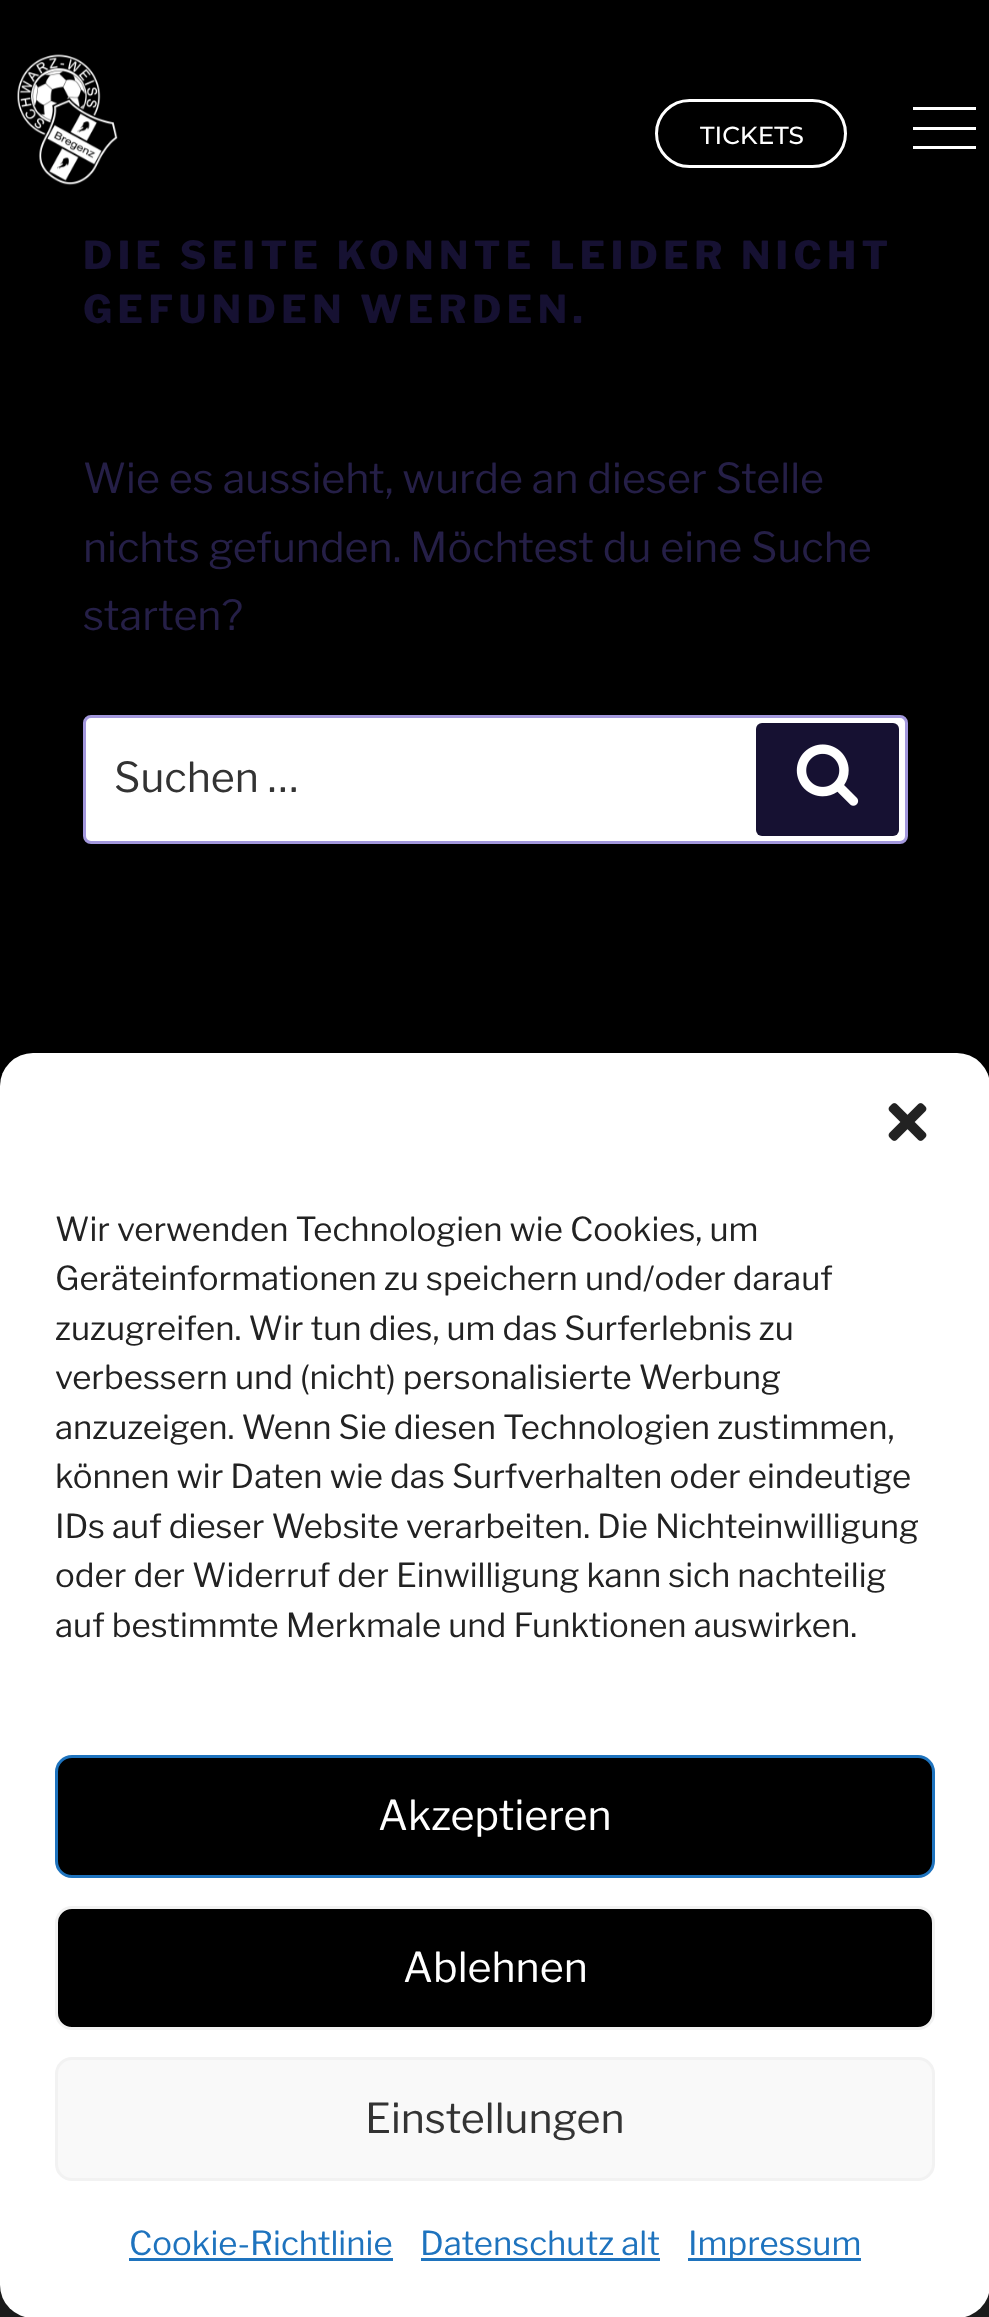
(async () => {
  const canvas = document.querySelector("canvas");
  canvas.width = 989;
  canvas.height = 2317;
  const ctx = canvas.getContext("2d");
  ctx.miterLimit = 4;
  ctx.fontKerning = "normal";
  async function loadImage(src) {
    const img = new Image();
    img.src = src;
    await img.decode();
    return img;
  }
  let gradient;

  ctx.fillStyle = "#000000";
  ctx.fillRect(0, 0, 989, 2317);
  ctx.drawImage(await loadImage("img/1.png"), 17, 54, 101, 132);
  ctx.beginPath();
  ctx.roundRect(656.5, 100.5, 189, 66, 33);
  ctx.strokeStyle = "#ffffff";
  ctx.lineWidth = 3;
  ctx.stroke();
  for (const [x, y, w, h, color] of [
    [913, 107, 63, 3, "#ffffff"],
    [913, 127, 63, 3, "#ffffff"],
    [913, 146, 63, 3, "#ffffff"],
  ]) {
    ctx.fillStyle = color;
    ctx.fillRect(x, y, w, h);
  }
  ctx.beginPath();
  ctx.roundRect(84.5, 716.5, 822, 126, 6.5);
  ctx.fill();
  ctx.strokeStyle = "#a398dd";
  ctx.stroke();
  ctx.fillStyle = "#161132";
  ctx.beginPath();
  ctx.roundRect(756, 723, 143, 113, 6);
  ctx.fill();
  ctx.drawImage(await loadImage("img/2.png"), 796, 744, 63, 62);
  gradient = ctx.createLinearGradient(495, 1133, 495, 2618);
  gradient.addColorStop(0, "#000000");
  gradient.addColorStop(1, "#222222");
  ctx.fillStyle = gradient;
  ctx.fillRect(0, 2285, 989, 32);
  ctx.fillStyle = "#ffffff";
  ctx.beginPath();
  ctx.roundRect(0, 1053, 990, 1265, 33);
  ctx.fill();
  ctx.drawImage(await loadImage("img/3.png"), 888, 1103, 39, 38);
  ctx.fillStyle = "#000000";
  ctx.beginPath();
  ctx.roundRect(56.5, 1756.5, 877, 120, 15.5);
  ctx.fill();
  ctx.strokeStyle = "#1e73be";
  ctx.stroke();
  ctx.beginPath();
  ctx.roundRect(56.5, 1907.5, 877, 121, 15.5);
  ctx.fill();
  ctx.strokeStyle = "#f2f2f2";
  ctx.stroke();
  ctx.fillStyle = "#f9f9f9";
  ctx.beginPath();
  ctx.roundRect(56.5, 2058.5, 877, 121, 15.5);
  ctx.fill();
  ctx.stroke();
  for (const [x, y, w, h, color] of [
    [129, 2258, 264, 3, "#1e73be"],
    [421, 2258, 239, 3, "#1e73be"],
    [688, 2258, 173, 3, "#1e73be"],
  ]) {
    ctx.fillStyle = color;
    ctx.fillRect(x, y, w, h);
  }
  ctx.font = "500 24.75px Montserrat";
  ctx.fillStyle = "#ffffff";
  ctx.fillText("TICKETS", 700, 144);
  ctx.letterSpacing = "5.4px";
  ctx.font = "100 38.5px Libre Franklin";
  ctx.fillStyle = "#161132";
  ctx.fillText("DIE SEITE KONNTE LEIDER NICHT", 83, 269);
  ctx.fillText("GEFUNDEN WERDEN.", 83, 323);
  ctx.letterSpacing = "0px";
  ctx.font = "100 41.25px 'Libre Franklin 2'";
  ctx.fillStyle = "#251f47";
  for (const [text, x, y] of [
    ["Wie es aussieht, wurde an dieser Stelle", 83, 493],
    ["nichts gefunden. Möchtest du eine Suche", 83, 562],
    ["starten?", 83, 630],
  ]) {
    ctx.fillText(text, x, y);
  }
  ctx.fillStyle = "#333333";
  ctx.fillText("Suchen …", 114, 792);
  ctx.font = "100 33px 'Libre Franklin 2'";
  ctx.fillStyle = "#222222";
  for (const [text, x, y] of [
    ["Wir verwenden Technologien wie Cookies, um", 55, 1241],
    ["Geräteinformationen zu speichern und/oder darauf", 55, 1290],
    ["zuzugreifen. Wir tun dies, um das Surferlebnis zu", 55, 1340],
    ["verbessern und (nicht) personalisierte Werbung", 55, 1389],
    ["anzuzeigen. Wenn Sie diesen Technologien zustimmen,", 55, 1439],
    ["können wir Daten wie das Surfverhalten oder eindeutige", 55, 1488],
    ["IDs auf dieser Website verarbeiten. Die Nichteinwilligung", 55, 1538],
    ["oder der Widerruf der Einwilligung kann sich nachteilig", 55, 1587],
    ["auf bestimmte Merkmale und Funktionen auswirken.", 55, 1637],
  ]) {
    ctx.fillText(text, x, y);
  }
  ctx.font = "100 41.25px 'Libre Franklin 2'";
  ctx.fillStyle = "#ffffff";
  ctx.fillText("Akzeptieren", 378, 1830);
  ctx.fillText("Ablehnen", 403, 1982);
  ctx.fillStyle = "#333333";
  ctx.fillText("Einstellungen", 365, 2133);
  ctx.font = "100 33px 'Libre Franklin 2'";
  ctx.fillStyle = "#1e73be";
  for (const [text, x, y] of [
    ["Cookie-Richtlinie", 129, 2255],
    ["Datenschutz alt", 420, 2255],
    ["Impressum", 688, 2255],
  ]) {
    ctx.fillText(text, x, y);
  }
})();
